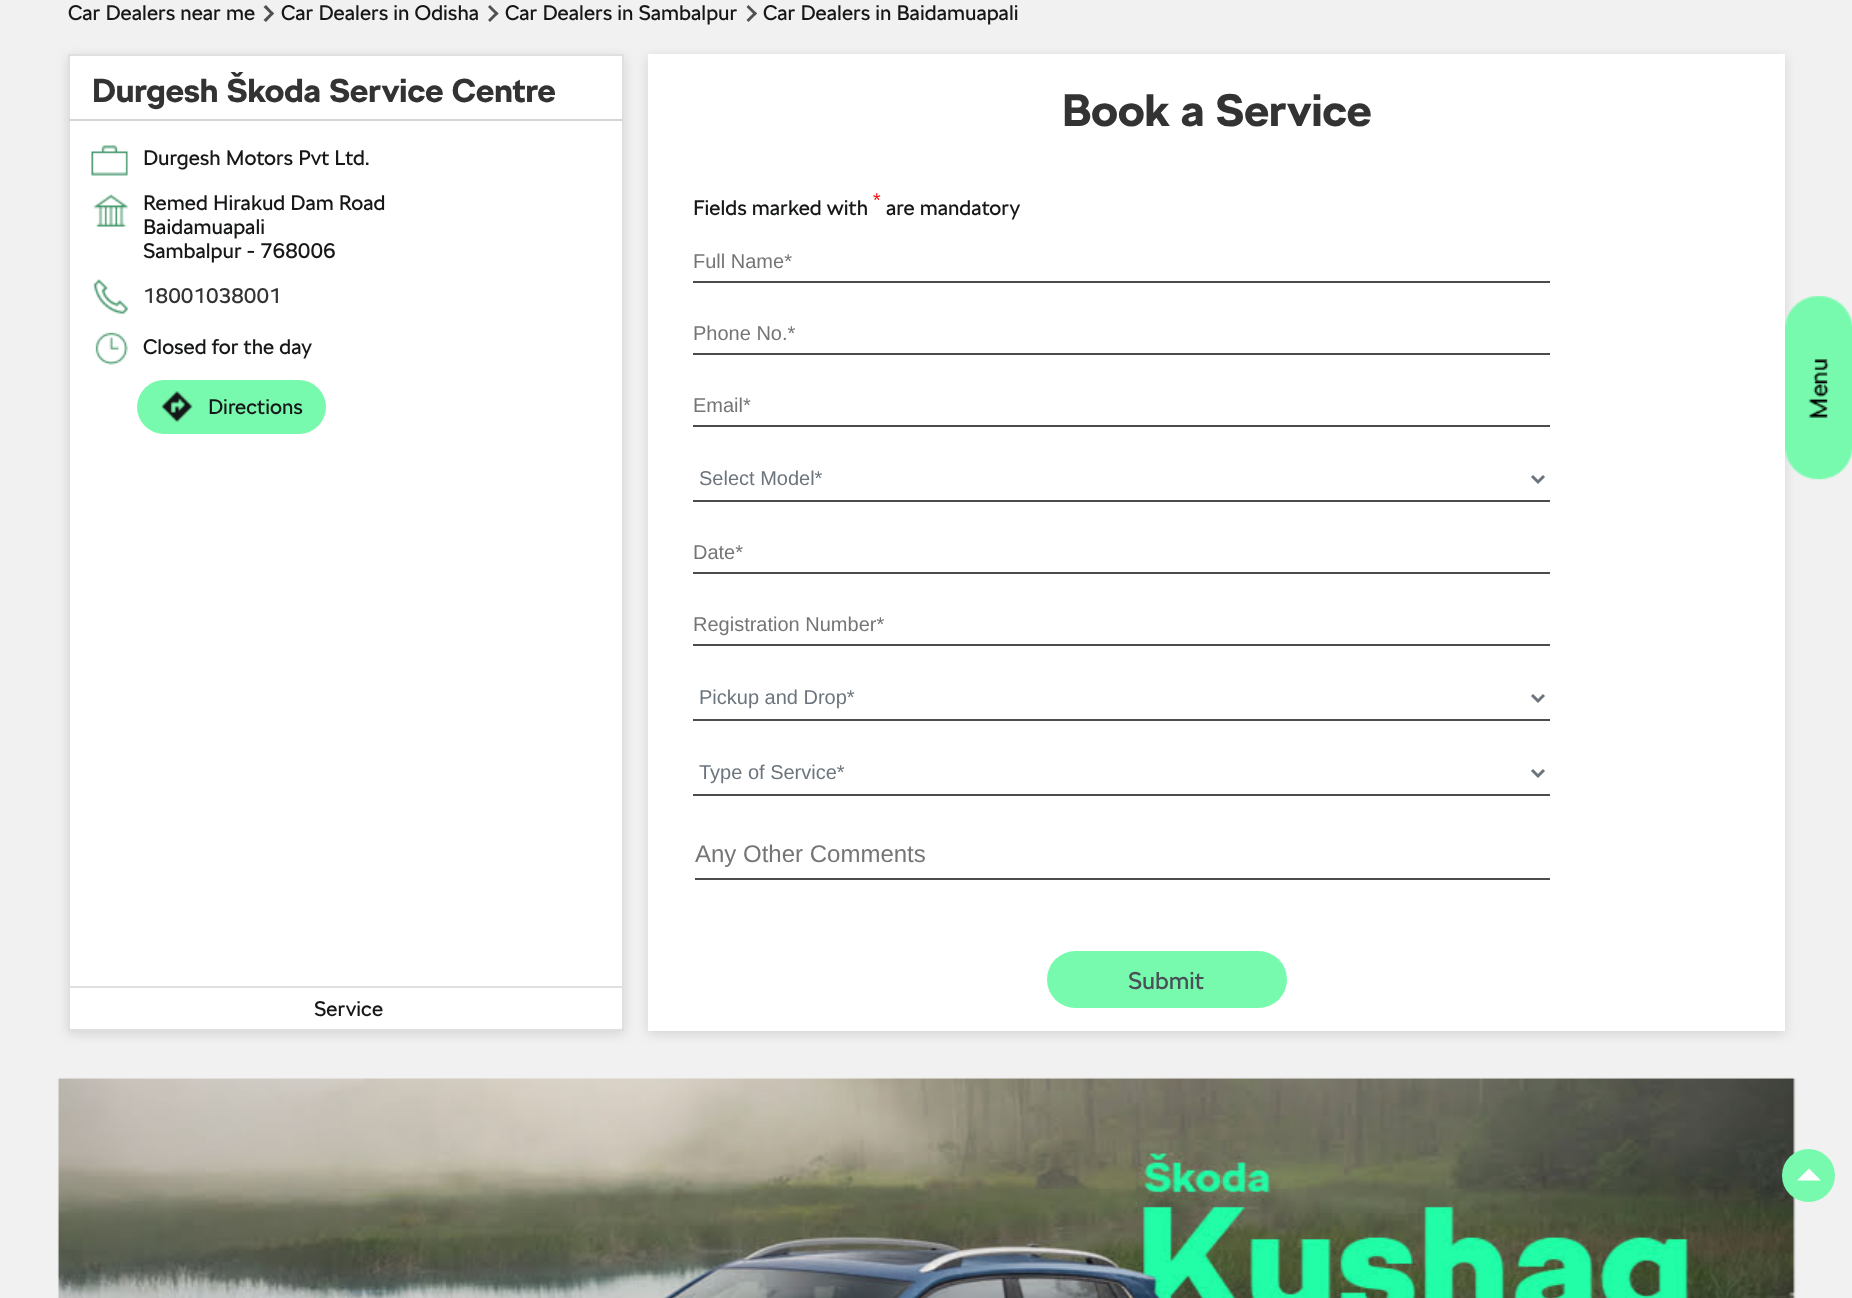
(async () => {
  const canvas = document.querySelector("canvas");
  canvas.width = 1852;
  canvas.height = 1298;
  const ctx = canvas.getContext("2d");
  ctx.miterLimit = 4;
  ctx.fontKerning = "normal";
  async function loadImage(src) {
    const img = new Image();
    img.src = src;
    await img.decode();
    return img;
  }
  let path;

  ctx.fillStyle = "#f1f1f1";
  ctx.fillRect(0, 0, 1852, 1298);
  ctx.fillStyle = "#505050";
  path = new Path2D("M263.5 7L266 5L274 13.5L272 15.5Z");
  ctx.fill(path);
  path = new Path2D("M263.5 20L272 11.5L274 13.5L266 22Z");
  ctx.fill(path);
  path = new Path2D("M488 7L490 5L498.5 13.5L496.5 15.5Z");
  ctx.fill(path);
  path = new Path2D("M488 20L496.5 11.5L498.5 13.5L490 22Z");
  ctx.fill(path);
  path = new Path2D("M746.5 7L748.5 5L757 13.5L755 15.5Z");
  ctx.fill(path);
  path = new Path2D("M746.5 20L755 11.5L757 13.5L748.5 22Z");
  ctx.fill(path);
  ctx.fillStyle = "rgba(99, 99, 99, 0.2)";
  ctx.filter = "blur(6px)";
  ctx.beginPath();
  ctx.rect(68, 57, 556, 977);
  ctx.fill();
  ctx.filter = "none";
  ctx.fillStyle = "#ffffff";
  ctx.beginPath();
  ctx.rect(69, 55, 554, 975);
  ctx.fill();
  ctx.strokeStyle = "#dfdfdf";
  ctx.lineWidth = 2;
  ctx.stroke();
  ctx.fillStyle = "#d5d5d5";
  ctx.fillRect(69, 119, 554, 2);
  ctx.drawImage(await loadImage("img/1.png"), 91, 145, 37, 31);
  ctx.drawImage(await loadImage("img/2.png"), 93, 194, 35, 33);
  ctx.drawImage(await loadImage("img/3.png"), 93, 279, 35, 35);
  ctx.drawImage(await loadImage("img/4.png"), 95, 332, 33, 33);
  ctx.fillStyle = "#78faae";
  ctx.beginPath();
  ctx.roundRect(137, 380, 189, 54, 27);
  ctx.fill();
  ctx.drawImage(await loadImage("img/5.png"), 161, 391, 32, 31);
  ctx.fillStyle = "#e0e0e0";
  ctx.fillRect(69, 986, 554, 2);
  ctx.fillStyle = "rgba(99, 99, 99, 0.2)";
  ctx.filter = "blur(6px)";
  ctx.beginPath();
  ctx.rect(648, 57, 1137, 977);
  ctx.fill();
  ctx.filter = "none";
  for (const [x, y, w, h, color] of [
    [648, 54, 1137, 977, "#ffffff"],
    [693, 281, 857, 2, "#4c4c4c"],
    [693, 353, 857, 2, "#4c4c4c"],
    [693, 425, 857, 2, "#4c4c4c"],
    [693, 500, 857, 2, "#4c4c4c"],
  ]) {
    ctx.fillStyle = color;
    ctx.fillRect(x, y, w, h);
  }
  path = new Path2D("M1532 476L1538 482L1544 476");
  ctx.strokeStyle = "#6c757d";
  ctx.lineWidth = 3;
  ctx.stroke(path);
  for (const [x, y, w, h, color] of [
    [693, 572, 857, 2, "#4c4c4c"],
    [693, 644, 857, 2, "#4c4c4c"],
    [693, 719, 857, 2, "#4c4c4c"],
  ]) {
    ctx.fillStyle = color;
    ctx.fillRect(x, y, w, h);
  }
  path = new Path2D("M1532 695L1538 701L1544 695");
  ctx.stroke(path);
  ctx.fillRect(693, 794, 857, 2);
  path = new Path2D("M1532 770L1538 776L1544 770");
  ctx.stroke(path);
  ctx.fillRect(695, 878, 855, 2);
  ctx.fillStyle = "#78faae";
  ctx.beginPath();
  ctx.roundRect(1047, 951, 240, 57, 28.5);
  ctx.fill();
  ctx.drawImage(await loadImage("img/6.png"), 57, 1077, 1739, 221);
  ctx.drawImage(await loadImage("img/7.png"), 1785, 296, 67, 184);
  ctx.beginPath();
  ctx.arc(1808.5, 1175.5, 26.5, 0, Math.PI * 2);
  ctx.fill();
  ctx.fillStyle = "#ffffff";
  path = new Path2D("M1821 1180.5H1797L1809 1168.5Z");
  ctx.fill(path);
  ctx.font = "21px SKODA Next";
  ctx.fillStyle = "#161718";
  for (const [text, x, y] of [
    ["Car Dealers near me", 68, 20],
    ["Car Dealers in Odisha", 281, 20],
    ["Car Dealers in Sambalpur", 505, 20],
    ["Car Dealers in Baidamuapali", 763, 20],
  ]) {
    ctx.fillText(text, x, y);
  }
  ctx.font = "bold 33px SKODA Next";
  ctx.fillStyle = "#333333";
  ctx.fillText("Durgesh Škoda Service Centre", 92, 102);
  ctx.font = "21px SKODA Next";
  ctx.fillStyle = "#161718";
  for (const [text, x, y] of [
    ["Durgesh Motors Pvt Ltd.", 143, 165],
    ["Remed Hirakud Dam Road", 143, 210],
    ["Baidamuapali", 143, 234],
    ["Sambalpur - 768006", 143, 258],
  ]) {
    ctx.fillText(text, x, y);
  }
  ctx.fillStyle = "#333333";
  ctx.fillText("18001038001", 143, 303);
  ctx.fillStyle = "#161718";
  for (const [text, x, y] of [
    ["Closed for the day", 143, 354],
    ["Directions", 208, 414],
    ["Service", 314, 1016],
  ]) {
    ctx.fillText(text, x, y);
  }
  ctx.font = "bold 45px SKODA Next";
  ctx.fillStyle = "#333333";
  ctx.fillText("Book a Service", 1062, 126);
  ctx.font = "18px SKODA Next";
  ctx.fillStyle = "#ff0000";
  ctx.fillText("*", 873, 206);
  ctx.font = "21px SKODA Next";
  ctx.fillStyle = "#161718";
  ctx.fillText("Fields marked with", 693, 215);
  ctx.fillText("are mandatory", 886, 215);
  ctx.font = "20px Liberation Sans";
  ctx.fillStyle = "#757575";
  for (const [text, x, y] of [
    ["Full Name*", 693, 268],
    ["Phone No.*", 693, 340],
    ["Email*", 693, 412],
  ]) {
    ctx.fillText(text, x, y);
  }
  ctx.fillStyle = "#6c757d";
  ctx.fillText("Select Model*", 699, 485);
  ctx.fillStyle = "#757575";
  ctx.fillText("Date*", 693, 559);
  ctx.fillText("Registration Number*", 693, 631);
  ctx.fillStyle = "#6c757d";
  ctx.fillText("Pickup and Drop*", 699, 704);
  ctx.fillText("Type of Service*", 699, 779);
  ctx.font = "24px Liberation Sans";
  ctx.fillStyle = "#757575";
  ctx.fillText("Any Other Comments", 695, 862);
  ctx.font = "24px SKODA Next";
  ctx.fillStyle = "#495057";
  ctx.fillText("Submit", 1128, 989);
})();
